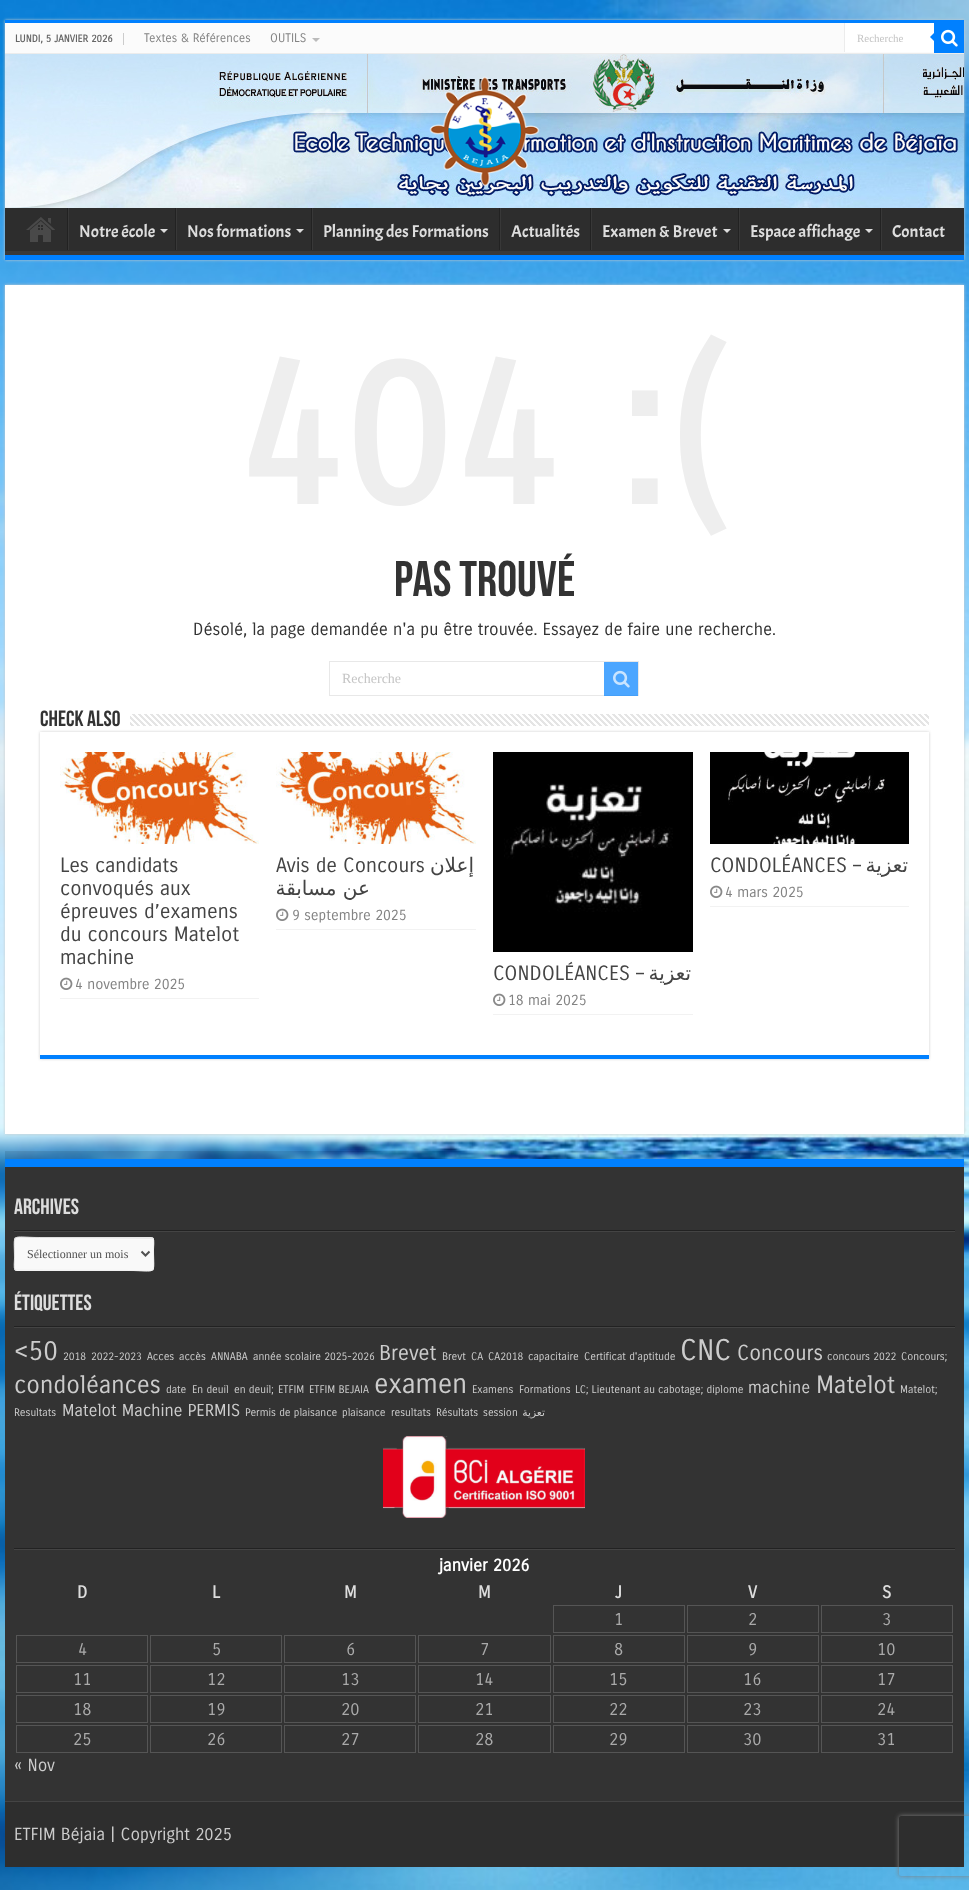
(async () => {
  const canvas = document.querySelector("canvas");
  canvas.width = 969;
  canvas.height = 1890;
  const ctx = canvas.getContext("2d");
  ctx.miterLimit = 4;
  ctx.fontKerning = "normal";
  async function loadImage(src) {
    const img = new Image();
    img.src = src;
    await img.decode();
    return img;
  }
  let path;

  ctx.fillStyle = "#ffffff";
  ctx.fillRect(0, 0, 969, 1890);
  ctx.drawImage(await loadImage("img/1.png"), 0, 0, 969, 1890);
  ctx.fillStyle = "#cacaca";
  ctx.filter = "blur(1.5px)";
  ctx.beginPath();
  ctx.rect(5, 20, 959, 240);
  ctx.fill();
  ctx.filter = "none";
  ctx.drawImage(await loadImage("img/2.png"), 5, 54, 959, 154);
  for (const [x, y, w, h, color] of [
    [5, 20, 959, 3, "#0080ff"],
    [5, 23, 929, 30, "#fbfbfb"],
    [5, 53, 959, 1, "#ececec"],
    [123, 33, 1, 12, "#cccccc"],
  ]) {
    ctx.fillStyle = color;
    ctx.fillRect(x, y, w, h);
  }
  ctx.fillStyle = "#bbbbbb";
  path = new Path2D("M312 38H320L316 42Z");
  ctx.fill(path);
  for (const [x, y, w, h, color] of [
    [845, 23, 89, 29, "#ffffff"],
    [844, 23, 1, 29, "#ececec"],
    [934, 23, 30, 30, "#0080ff"],
  ]) {
    ctx.fillStyle = color;
    ctx.fillRect(x, y, w, h);
  }
  ctx.drawImage(await loadImage("img/3.png"), 941, 29, 17, 18);
  path = new Path2D("M934 33V41L930 37Z");
  ctx.fill(path);
  ctx.drawImage(await loadImage("img/4.png"), 429, 76, 111, 111);
  ctx.fillStyle = "#2d2d2d";
  ctx.fillRect(5, 208, 959, 43);
  ctx.save();
  ctx.beginPath();
  ctx.rect(5, 208, 959, 47);
  ctx.clip();
  ctx.fillStyle = "#393939";
  path = new Path2D("M-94 109H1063V354H-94ZM4 202H963C964 202 964 202 964 203V250C964 251 964 251 963 251H4C3 251 3 251 3 250V203C3 202 3 202 4 202Z");
  ctx.fill(path, "evenodd");
  ctx.restore();
  ctx.fillStyle = "#0080ff";
  ctx.fillRect(5, 255, 959, 5);
  ctx.drawImage(await loadImage("img/5.png"), 26, 217, 29, 25);
  ctx.fillStyle = "#222222";
  ctx.fillRect(67, 208, 1, 42);
  ctx.fillStyle = "#383838";
  ctx.fillRect(68, 208, 1, 42);
  ctx.fillStyle = "#dddddd";
  path = new Path2D("M160 229H168L164 233Z");
  ctx.fill(path);
  ctx.fillStyle = "#222222";
  ctx.fillRect(175, 208, 1, 42);
  ctx.fillStyle = "#383838";
  ctx.fillRect(176, 208, 1, 42);
  ctx.fillStyle = "#dddddd";
  path = new Path2D("M296 229H304L300 233Z");
  ctx.fill(path);
  for (const [x, y, w, h, color] of [
    [311, 208, 1, 42, "#222222"],
    [312, 208, 1, 42, "#383838"],
    [499, 208, 1, 42, "#222222"],
    [500, 208, 1, 42, "#383838"],
    [590, 208, 1, 42, "#222222"],
    [591, 208, 1, 42, "#383838"],
  ]) {
    ctx.fillStyle = color;
    ctx.fillRect(x, y, w, h);
  }
  ctx.fillStyle = "#dddddd";
  path = new Path2D("M723 229H731L727 233Z");
  ctx.fill(path);
  ctx.fillStyle = "#222222";
  ctx.fillRect(738, 208, 1, 42);
  ctx.fillStyle = "#383838";
  ctx.fillRect(739, 208, 1, 42);
  ctx.fillStyle = "#dddddd";
  path = new Path2D("M865 229H873L869 233Z");
  ctx.fill(path);
  ctx.fillStyle = "#222222";
  ctx.fillRect(880, 208, 1, 42);
  ctx.fillStyle = "#383838";
  ctx.fillRect(881, 208, 1, 42);
  ctx.fillStyle = "#cacaca";
  ctx.filter = "blur(1.5px)";
  ctx.beginPath();
  ctx.rect(5, 285, 959, 849);
  ctx.fill();
  ctx.filter = "none";
  ctx.fillStyle = "#ffffff";
  ctx.fillRect(5, 285, 959, 849);
  ctx.strokeStyle = "#e8e8e8";
  ctx.strokeRect(329.5, 661.5, 309, 34);
  ctx.fillStyle = "rgba(0, 128, 255, 0.7)";
  ctx.fillRect(604, 662, 34, 34);
  ctx.drawImage(await loadImage("img/6.png"), 613, 670, 17, 18);
  ctx.drawImage(await loadImage("img/7.png"), 130, 714, 799, 12);
  ctx.save();
  path = new Path2D("M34 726H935V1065H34ZM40 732H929V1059H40Z");
  ctx.clip(path, "evenodd");
  ctx.fillStyle = "#cacaca";
  ctx.filter = "blur(1.5px)";
  ctx.beginPath();
  ctx.rect(40, 732, 889, 327);
  ctx.fill();
  ctx.filter = "none";
  ctx.restore();
  ctx.fillStyle = "#0080ff";
  ctx.fillRect(40, 1055, 889, 4);
  ctx.drawImage(await loadImage("img/8.png"), 60, 752, 199, 92);
  ctx.fillStyle = "#f2f2f2";
  ctx.fillRect(60, 998, 199, 1);
  ctx.drawImage(await loadImage("img/9.png"), 60, 977, 13, 13);
  ctx.drawImage(await loadImage("img/10.png"), 276, 752, 200, 92);
  ctx.fillRect(276, 929, 200, 1);
  ctx.drawImage(await loadImage("img/9.png"), 276, 908, 13, 13);
  ctx.fillStyle = "#000000";
  ctx.fillRect(493, 752, 200, 200);
  ctx.drawImage(await loadImage("img/11.png"), 504, 783, 169, 129);
  ctx.fillStyle = "#f2f2f2";
  ctx.fillRect(493, 1014, 200, 1);
  ctx.drawImage(await loadImage("img/9.png"), 493, 993, 13, 13);
  ctx.fillStyle = "#000000";
  ctx.fillRect(710, 752, 199, 92);
  ctx.drawImage(await loadImage("img/12.png"), 728, 752, 157, 92);
  ctx.fillStyle = "#f2f2f2";
  ctx.fillRect(710, 906, 199, 1);
  ctx.drawImage(await loadImage("img/9.png"), 710, 885, 13, 13);
  for (const [x, y, w, h, color] of [
    [5, 1151, 959, 8, "rgba(0, 0, 0, 0.1)"],
    [5, 1167, 959, 634, "#333333"],
    [5, 1159, 959, 8, "#0080ff"],
    [14, 1230, 941, 1, "#222222"],
    [14, 1231, 941, 1, "#444444"],
  ]) {
    ctx.fillStyle = color;
    ctx.fillRect(x, y, w, h);
  }
  ctx.fillStyle = "#f9f9f9";
  ctx.beginPath();
  ctx.roundRect(14, 1237, 140, 34, 3);
  ctx.fill();
  path = new Path2D("M153 1238C154.5 1240 153.5 1247 153.5 1249.5C153.5 1276.5 158.5 1270.5 128.5 1270.5L16 1270H15");
  ctx.strokeStyle = "#f1f1f1";
  ctx.stroke(path);
  path = new Path2D("M15 1270C13.5 1268 14.5 1261 14.5 1258.5C14.5 1231.5 9.5 1237.5 39.5 1237.5L152 1238H153");
  ctx.strokeStyle = "#dddddd";
  ctx.stroke(path);
  path = new Path2D("M141.5 1251.5L145.5 1255.5L149.5 1251.5");
  ctx.strokeStyle = "#515151";
  ctx.lineWidth = 2;
  ctx.stroke(path);
  ctx.fillStyle = "#222222";
  ctx.fillRect(14, 1326, 941, 1);
  ctx.fillStyle = "#444444";
  ctx.fillRect(14, 1327, 941, 1);
  ctx.drawImage(await loadImage("img/13.png"), 383, 1436, 202, 82);
  ctx.fillStyle = "#222222";
  ctx.fillRect(14, 1548, 941, 1);
  ctx.fillStyle = "#444444";
  ctx.fillRect(14, 1549, 941, 1);
  ctx.strokeStyle = "#555555";
  ctx.lineWidth = 1;
  ctx.strokeRect(553.5, 1605.5, 131, 27);
  ctx.strokeRect(687.5, 1605.5, 131, 27);
  ctx.strokeRect(821.5, 1605.5, 131, 27);
  ctx.strokeRect(16.5, 1635.5, 131, 27);
  ctx.strokeRect(150.5, 1635.5, 131, 27);
  ctx.strokeRect(284.5, 1635.5, 131, 27);
  ctx.strokeRect(418.5, 1635.5, 132, 27);
  ctx.strokeRect(553.5, 1635.5, 131, 27);
  ctx.strokeRect(687.5, 1635.5, 131, 27);
  ctx.strokeRect(821.5, 1635.5, 131, 27);
  ctx.strokeRect(16.5, 1665.5, 131, 27);
  ctx.strokeRect(150.5, 1665.5, 131, 27);
  ctx.strokeRect(284.5, 1665.5, 131, 27);
  ctx.strokeRect(418.5, 1665.5, 132, 27);
  ctx.strokeRect(553.5, 1665.5, 131, 27);
  ctx.strokeRect(687.5, 1665.5, 131, 27);
  ctx.strokeRect(821.5, 1665.5, 131, 27);
  ctx.strokeRect(16.5, 1695.5, 131, 27);
  ctx.strokeRect(150.5, 1695.5, 131, 27);
  ctx.strokeRect(284.5, 1695.5, 131, 27);
  ctx.strokeRect(418.5, 1695.5, 132, 27);
  ctx.strokeRect(553.5, 1695.5, 131, 27);
  ctx.strokeRect(687.5, 1695.5, 131, 27);
  ctx.strokeRect(821.5, 1695.5, 131, 27);
  ctx.strokeRect(16.5, 1725.5, 131, 27);
  ctx.strokeRect(150.5, 1725.5, 131, 27);
  ctx.strokeRect(284.5, 1725.5, 131, 27);
  ctx.strokeRect(418.5, 1725.5, 132, 27);
  ctx.strokeRect(553.5, 1725.5, 131, 27);
  ctx.strokeRect(687.5, 1725.5, 131, 27);
  ctx.strokeRect(821.5, 1725.5, 131, 27);
  ctx.fillStyle = "#2e2e2e";
  ctx.fillRect(5, 1802, 959, 65);
  ctx.fillStyle = "#444444";
  ctx.fillRect(5, 1801, 959, 1);
  ctx.save();
  path = new Path2D("M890 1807H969V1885H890ZM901 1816H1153C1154 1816 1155 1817 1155 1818V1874C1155 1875 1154 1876 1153 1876H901C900 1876 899 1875 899 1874V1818C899 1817 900 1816 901 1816Z");
  ctx.clip(path, "evenodd");
  ctx.fillStyle = "#808080";
  ctx.filter = "blur(2.5px)";
  ctx.beginPath();
  ctx.roundRect(899, 1816, 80, 60, 2);
  ctx.fill();
  ctx.filter = "none";
  ctx.restore();
  ctx.font = "bold 10px Carrois Gothic";
  ctx.fillStyle = "#666666";
  ctx.fillText("LUNDI, 5 JANVIER 2026", 15, 42);
  ctx.font = "12px Carrois Gothic";
  ctx.fillStyle = "#838383";
  ctx.fillText("Textes & Références", 144, 42);
  ctx.fillText("OUTILS", 270, 42);
  ctx.font = "11px Liberation Serif";
  ctx.fillStyle = "#c5c5c5";
  ctx.fillText("Recherche", 857, 42);
  ctx.font = "17px Acme";
  ctx.fillStyle = "#dddddd";
  for (const [text, x, y] of [
    ["Notre école", 79, 237],
    ["Nos formations", 187, 237],
    ["Planning des Formations", 323, 237],
    ["Actualités", 511, 237],
    ["Examen & Brevet", 602, 237],
    ["Espace affichage", 750, 237],
    ["Contact", 892, 237],
  ]) {
    ctx.fillText(text, x, y);
  }
  ctx.font = "bold 200px Carrois Gothic";
  ctx.fillStyle = "#eeeeee";
  ctx.fillText("404 :(", 235, 504);
  ctx.font = "bold 50px Bebas Neue";
  ctx.fillStyle = "#333333";
  ctx.fillText("Pas trouvé", 394, 596);
  ctx.font = "17px Carrois Gothic";
  ctx.fillText("Désolé, la page demandée n'a pu être trouvée. Essayez de faire une recherche.", 193, 635);
  ctx.font = "14px Liberation Serif";
  ctx.fillStyle = "#c5c5c5";
  ctx.fillText("Recherche", 342, 683);
  ctx.font = "bold 22px Bebas Neue";
  ctx.fillStyle = "#333333";
  ctx.fillText("Check Also", 40, 726);
  ctx.font = "20px Carrois Gothic";
  ctx.fillStyle = "#444444";
  for (const [text, x, y] of [
    ["Les candidats", 60, 872],
    ["convoqués aux", 60, 895],
    ["épreuves d’examens", 60, 918],
    ["du concours Matelot", 60, 941],
    ["machine", 60, 964],
  ]) {
    ctx.fillText(text, x, y);
  }
  ctx.font = "14.5px Carrois Gothic";
  ctx.fillStyle = "#838383";
  ctx.fillText("4 novembre 2025", 75, 989);
  ctx.font = "20px Carrois Gothic";
  ctx.fillStyle = "#444444";
  ctx.fillText("Avis de Concours", 276, 872);
  ctx.direction = "rtl";
  ctx.font = "20px DejaVu Sans";
  ctx.fillText("إعلان", 474, 872);
  ctx.fillText("عن مسابقة", 370, 895);
  ctx.direction = "ltr";
  ctx.font = "14.5px Carrois Gothic";
  ctx.fillStyle = "#838383";
  ctx.fillText("9 septembre 2025", 292, 920);
  ctx.font = "20px Carrois Gothic";
  ctx.fillStyle = "#444444";
  ctx.fillText("CONDOLÉANCES –", 493, 980);
  ctx.direction = "rtl";
  ctx.font = "20px DejaVu Sans";
  ctx.fillText("تعزية", 691, 980);
  ctx.direction = "ltr";
  ctx.font = "14.5px Carrois Gothic";
  ctx.fillStyle = "#838383";
  ctx.fillText("18 mai 2025", 508, 1005);
  ctx.font = "20px Carrois Gothic";
  ctx.fillStyle = "#444444";
  ctx.fillText("CONDOLÉANCES –", 710, 872);
  ctx.direction = "rtl";
  ctx.font = "20px DejaVu Sans";
  ctx.fillText("تعزية", 908, 872);
  ctx.direction = "ltr";
  ctx.font = "14.5px Carrois Gothic";
  ctx.fillStyle = "#838383";
  ctx.fillText("4 mars 2025", 725, 897);
  ctx.font = "bold 22px Bebas Neue";
  ctx.fillStyle = "#dddddd";
  ctx.fillText("Archives", 14, 1214);
  ctx.font = "12px Liberation Serif";
  ctx.fillStyle = "#515151";
  ctx.fillText("Sélectionner un mois", 27, 1258);
  ctx.font = "bold 22px Bebas Neue";
  ctx.fillStyle = "#dddddd";
  ctx.fillText("Étiquettes", 14, 1310);
  ctx.font = "27px Carrois Gothic";
  ctx.fillStyle = "#cccccc";
  ctx.fillText("<50", 14, 1360);
  ctx.font = "10.7px Carrois Gothic";
  for (const [text, x, y] of [
    ["2018", 63, 1360],
    ["2022-2023", 91, 1360],
    ["Acces", 147, 1360],
    ["accès", 179, 1360],
    ["ANNABA", 211, 1360],
    ["année scolaire 2025-2026", 253, 1360],
  ]) {
    ctx.fillText(text, x, y);
  }
  ctx.font = "21px Carrois Gothic";
  ctx.fillText("Brevet", 379, 1360);
  ctx.font = "10.7px Carrois Gothic";
  for (const [text, x, y] of [
    ["Brevt", 442, 1360],
    ["CA", 471, 1360],
    ["CA2018", 488, 1360],
    ["capacitaire", 528, 1360],
    ["Certificat d'aptitude", 584, 1360],
  ]) {
    ctx.fillText(text, x, y);
  }
  ctx.font = "29px Carrois Gothic";
  ctx.fillText("CNC", 680, 1360);
  ctx.font = "21px Carrois Gothic";
  ctx.fillText("Concours", 737, 1360);
  ctx.font = "10.7px Carrois Gothic";
  ctx.fillText("concours 2022", 827, 1360);
  ctx.fillText("Concours;", 901, 1360);
  ctx.font = "24.25px Carrois Gothic";
  ctx.fillText("condoléances", 14, 1393);
  ctx.font = "10.7px Carrois Gothic";
  for (const [text, x, y] of [
    ["date", 166, 1393],
    ["En deuil", 192, 1393],
    ["en deuil;", 234, 1393],
    ["ETFIM", 278, 1393],
    ["ETFIM BEJAIA", 309, 1393],
  ]) {
    ctx.fillText(text, x, y);
  }
  ctx.font = "27px Carrois Gothic";
  ctx.fillText("examen", 374, 1393);
  ctx.font = "10.7px Carrois Gothic";
  for (const [text, x, y] of [
    ["Examens", 472, 1393],
    ["Formations", 519, 1393],
    ["LC; Lieutenant au cabotage; diplome", 575, 1393],
  ]) {
    ctx.fillText(text, x, y);
  }
  ctx.font = "16.75px Carrois Gothic";
  ctx.fillText("machine", 748, 1393);
  ctx.font = "24.25px Carrois Gothic";
  ctx.fillText("Matelot", 816, 1393);
  ctx.font = "10.7px Carrois Gothic";
  ctx.fillText("Matelot;", 900, 1393);
  ctx.fillText("Resultats", 14, 1416);
  ctx.font = "16.75px Carrois Gothic";
  ctx.fillText("Matelot Machine PERMIS", 62, 1416);
  ctx.font = "10.7px Carrois Gothic";
  for (const [text, x, y] of [
    ["Permis de plaisance", 245, 1416],
    ["plaisance", 342, 1416],
    ["resultats", 391, 1416],
    ["Résultats", 436, 1416],
    ["session", 483, 1416],
  ]) {
    ctx.fillText(text, x, y);
  }
  ctx.direction = "rtl";
  ctx.font = "10.7px DejaVu Sans";
  ctx.fillText("تعزية", 545, 1416);
  ctx.direction = "ltr";
  ctx.font = "bold 17px Carrois Gothic";
  ctx.fillStyle = "#ffffff";
  ctx.fillText("janvier 2026", 439, 1571);
  ctx.fillStyle = "#dddddd";
  for (const [text, x, y] of [
    ["D", 77, 1598],
    ["L", 212, 1598],
    ["M", 344, 1598],
    ["M", 478, 1598],
    ["J", 615, 1598],
    ["V", 748, 1598],
    ["S", 882, 1598],
  ]) {
    ctx.fillText(text, x, y);
  }
  ctx.font = "17px Carrois Gothic";
  ctx.fillStyle = "#aaaaaa";
  for (const [text, x, y] of [
    ["1", 614, 1625],
    ["2", 748, 1625],
    ["3", 882, 1625],
    ["4", 78, 1655],
    ["5", 212, 1655],
    ["6", 346, 1655],
    ["7", 480, 1655],
    ["8", 614, 1655],
    ["9", 748, 1655],
    ["10", 877, 1655],
    ["11", 73, 1685],
    ["12", 207, 1685],
    ["13", 341, 1685],
    ["14", 475, 1685],
    ["15", 609, 1685],
    ["16", 743, 1685],
    ["17", 877, 1685],
    ["18", 73, 1715],
    ["19", 207, 1715],
    ["20", 341, 1715],
    ["21", 475, 1715],
    ["22", 609, 1715],
    ["23", 743, 1715],
    ["24", 877, 1715],
    ["25", 73, 1745],
    ["26", 207, 1745],
    ["27", 341, 1745],
    ["28", 475, 1745],
    ["29", 609, 1745],
    ["30", 743, 1745],
    ["31", 877, 1745],
  ]) {
    ctx.fillText(text, x, y);
  }
  ctx.fillStyle = "#cccccc";
  ctx.fillText("« Nov", 14, 1771);
  ctx.fillText("ETFIM Béjaia | Copyright 2025", 14, 1840);
})();
